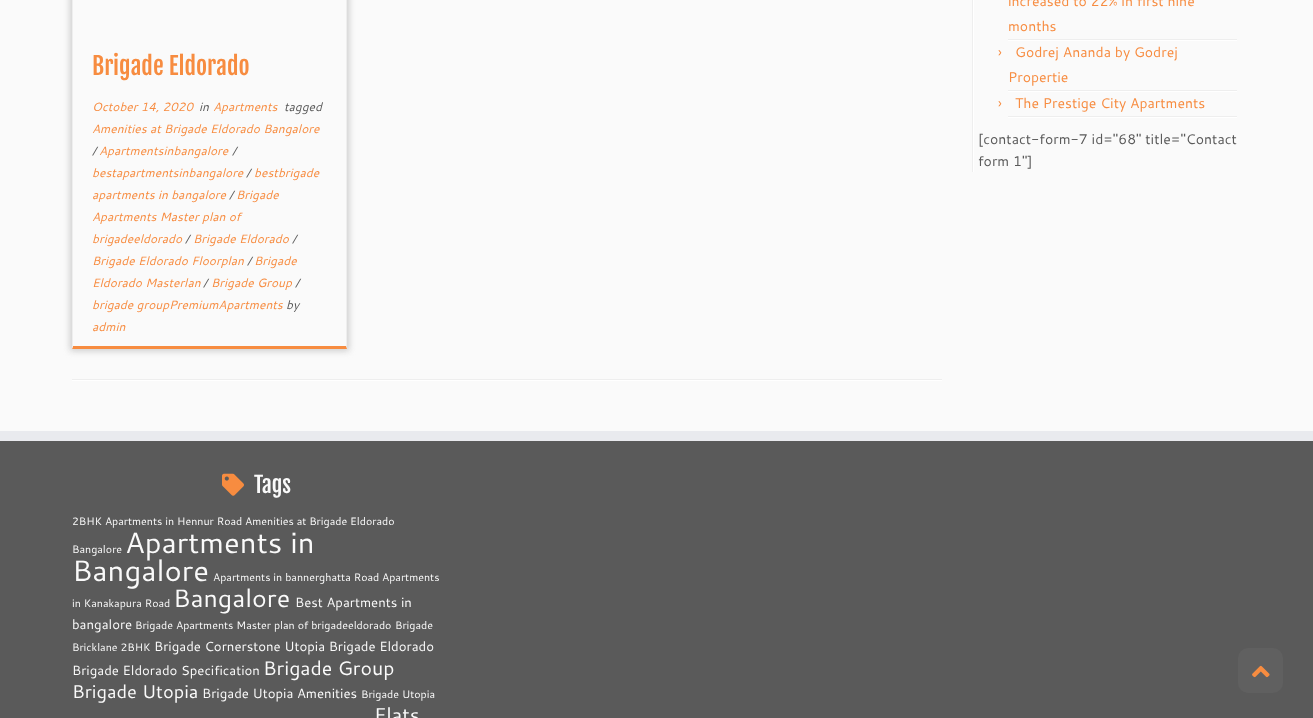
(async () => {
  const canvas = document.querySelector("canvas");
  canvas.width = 1313;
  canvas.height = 718;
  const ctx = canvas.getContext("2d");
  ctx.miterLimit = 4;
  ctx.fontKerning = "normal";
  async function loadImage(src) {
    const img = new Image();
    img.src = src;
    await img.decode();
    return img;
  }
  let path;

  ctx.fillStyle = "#fafafa";
  ctx.fillRect(0, 0, 1313, 718);
  ctx.save();
  path = new Path2D("M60 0H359V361H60ZM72-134H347V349H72Z");
  ctx.clip(path, "evenodd");
  ctx.fillStyle = "#cccccc";
  ctx.filter = "blur(3px)";
  ctx.beginPath();
  ctx.rect(70, -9, 279, 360);
  ctx.fill();
  ctx.filter = "none";
  ctx.restore();
  ctx.fillStyle = "#eeeeee";
  path = new Path2D("M347-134V349L346 346V-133Z");
  ctx.fill(path);
  ctx.fillStyle = "#f78c40";
  path = new Path2D("M347 349H72L73 346H346Z");
  ctx.fill(path);
  ctx.fillStyle = "#eeeeee";
  path = new Path2D("M72 349V-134L73-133V346Z");
  ctx.fill(path);
  for (const [x, y, w, h, color] of [
    [72, 379, 870, 1, "#eeeeee"],
    [72, 380, 870, 1, "#ffffff"],
    [972, 0, 1, 172, "#eeeeee"],
    [973, 0, 1, 172, "#ffffff"],
    [1008, 39, 229, 1, "#eeeeee"],
    [1008, 40, 229, 1, "#ffffff"],
    [1008, 90, 229, 1, "#eeeeee"],
    [1008, 91, 229, 1, "#ffffff"],
    [1008, 116, 229, 1, "#eeeeee"],
    [1008, 117, 229, 1, "#ffffff"],
    [0, 441, 1313, 277, "#5a5a5a"],
    [0, 431, 1313, 10, "#e9eaee"],
  ]) {
    ctx.fillStyle = color;
    ctx.fillRect(x, y, w, h);
  }
  ctx.drawImage(await loadImage("img/1.png"), 222, 473, 22, 23);
  ctx.fillStyle = "#606060";
  ctx.beginPath();
  ctx.roundRect(1238, 648, 45, 45, 10);
  ctx.fill();
  ctx.drawImage(await loadImage("img/2.png"), 1252, 665, 18, 13);
  ctx.font = "24px Fjalla One";
  ctx.fillStyle = "#f78c40";
  ctx.fillText("Brigade Eldorado", 92, 75);
  ctx.font = "italic 12px Cantarell";
  ctx.fillText("October 14, 2020", 92, 111);
  ctx.fillStyle = "#5a5a5a";
  ctx.fillText("in", 199, 111);
  ctx.fillStyle = "#f78c40";
  ctx.fillText("Apartments", 213, 111);
  ctx.fillStyle = "#5a5a5a";
  ctx.fillText("tagged", 284, 111);
  ctx.fillStyle = "#f78c40";
  ctx.fillText("Amenities at Brigade Eldorado Bangalore", 92, 133);
  ctx.fillStyle = "#5a5a5a";
  ctx.fillText("/", 92, 155);
  ctx.fillStyle = "#f78c40";
  ctx.fillText("Apartmentsinbangalore", 99, 155);
  ctx.fillStyle = "#5a5a5a";
  ctx.fillText("/", 232, 155);
  ctx.fillStyle = "#f78c40";
  ctx.fillText("bestapartmentsinbangalore", 92, 177);
  ctx.fillStyle = "#5a5a5a";
  ctx.fillText("/", 246, 177);
  ctx.fillStyle = "#f78c40";
  ctx.fillText("bestbrigade", 254, 177);
  ctx.fillText("apartments in bangalore", 92, 199);
  ctx.fillStyle = "#5a5a5a";
  ctx.fillText("/", 229, 199);
  ctx.fillStyle = "#f78c40";
  for (const [text, x, y] of [
    ["Brigade", 236, 199],
    ["Apartments Master plan of", 92, 221],
    ["brigadeeldorado", 92, 243],
  ]) {
    ctx.fillText(text, x, y);
  }
  ctx.fillStyle = "#5a5a5a";
  ctx.fillText("/", 185, 243);
  ctx.fillStyle = "#f78c40";
  ctx.fillText("Brigade Eldorado", 193, 243);
  ctx.fillStyle = "#5a5a5a";
  ctx.fillText("/", 292, 243);
  ctx.fillStyle = "#f78c40";
  ctx.fillText("Brigade Eldorado Floorplan", 92, 265);
  ctx.fillStyle = "#5a5a5a";
  ctx.fillText("/", 247, 265);
  ctx.fillStyle = "#f78c40";
  ctx.fillText("Brigade", 254, 265);
  ctx.fillText("Eldorado Masterlan", 92, 287);
  ctx.fillStyle = "#5a5a5a";
  ctx.fillText("/", 203, 287);
  ctx.fillStyle = "#f78c40";
  ctx.fillText("Brigade Group", 211, 287);
  ctx.fillStyle = "#5a5a5a";
  ctx.fillText("/", 295, 287);
  ctx.fillStyle = "#f78c40";
  ctx.fillText("brigade groupPremiumApartments", 92, 309);
  ctx.fillStyle = "#5a5a5a";
  ctx.fillText("by", 286, 309);
  ctx.fillStyle = "#f78c40";
  ctx.fillText("admin", 92, 331);
  ctx.font = "14px Cantarell";
  for (const [text, x, y] of [
    ["increased to 22% in first nine", 1008, 6],
    ["months", 1008, 31],
    ["›", 998, 57],
    ["Godrej Ananda by Godrej", 1015, 57],
    ["Propertie", 1008, 82],
    ["›", 998, 108],
    ["The Prestige City Apartments", 1015, 108],
  ]) {
    ctx.fillText(text, x, y);
  }
  ctx.fillStyle = "#5a5a5a";
  ctx.fillText("[contact-form-7 id=\"68\" title=\"Contact", 978, 144);
  ctx.fillText("form 1\"]", 978, 166);
  ctx.font = "22px Fjalla One";
  ctx.fillStyle = "#fafafa";
  ctx.fillText("Tags", 254, 493);
  ctx.font = "10.7px Cantarell";
  for (const [text, x, y] of [
    ["2BHK Apartments in Hennur Road", 72, 525],
    ["Amenities at Brigade Eldorado", 245, 525],
    ["Bangalore", 72, 553],
  ]) {
    ctx.fillText(text, x, y);
  }
  ctx.font = "29.25px Cantarell";
  ctx.fillText("Apartments in", 125, 553);
  ctx.fillText("Bangalore", 72, 581);
  ctx.font = "10.7px Cantarell";
  for (const [text, x, y] of [
    ["Apartments in bannerghatta Road", 213, 581],
    ["Apartments", 382, 581],
    ["in Kanakapura Road", 72, 607],
  ]) {
    ctx.fillText(text, x, y);
  }
  ctx.font = "25px Cantarell";
  ctx.fillText("Bangalore", 173, 607);
  ctx.font = "13.2px Cantarell";
  ctx.fillText("Best Apartments in", 295, 607);
  ctx.fillText("bangalore", 72, 629);
  ctx.font = "10.7px Cantarell";
  for (const [text, x, y] of [
    ["Brigade Apartments Master plan of brigadeeldorado", 135, 629],
    ["Brigade", 395, 629],
    ["Bricklane 2BHK", 72, 651],
  ]) {
    ctx.fillText(text, x, y);
  }
  ctx.font = "13.2px Cantarell";
  ctx.fillText("Brigade Cornerstone Utopia Brigade Eldorado", 154, 651);
  ctx.fillText("Brigade Eldorado Specification", 72, 675);
  ctx.font = "19.5px Cantarell";
  ctx.fillText("Brigade Group", 263, 675);
  ctx.font = "18.25px Cantarell";
  ctx.fillText("Brigade Utopia", 72, 698);
  ctx.font = "13.2px Cantarell";
  ctx.fillText("Brigade Utopia Amenities", 202, 698);
  ctx.font = "10.7px Cantarell";
  ctx.fillText("Brigade Utopia", 361, 698);
  ctx.font = "20px Cantarell";
  ctx.fillText("Flats", 374, 722);
})();
